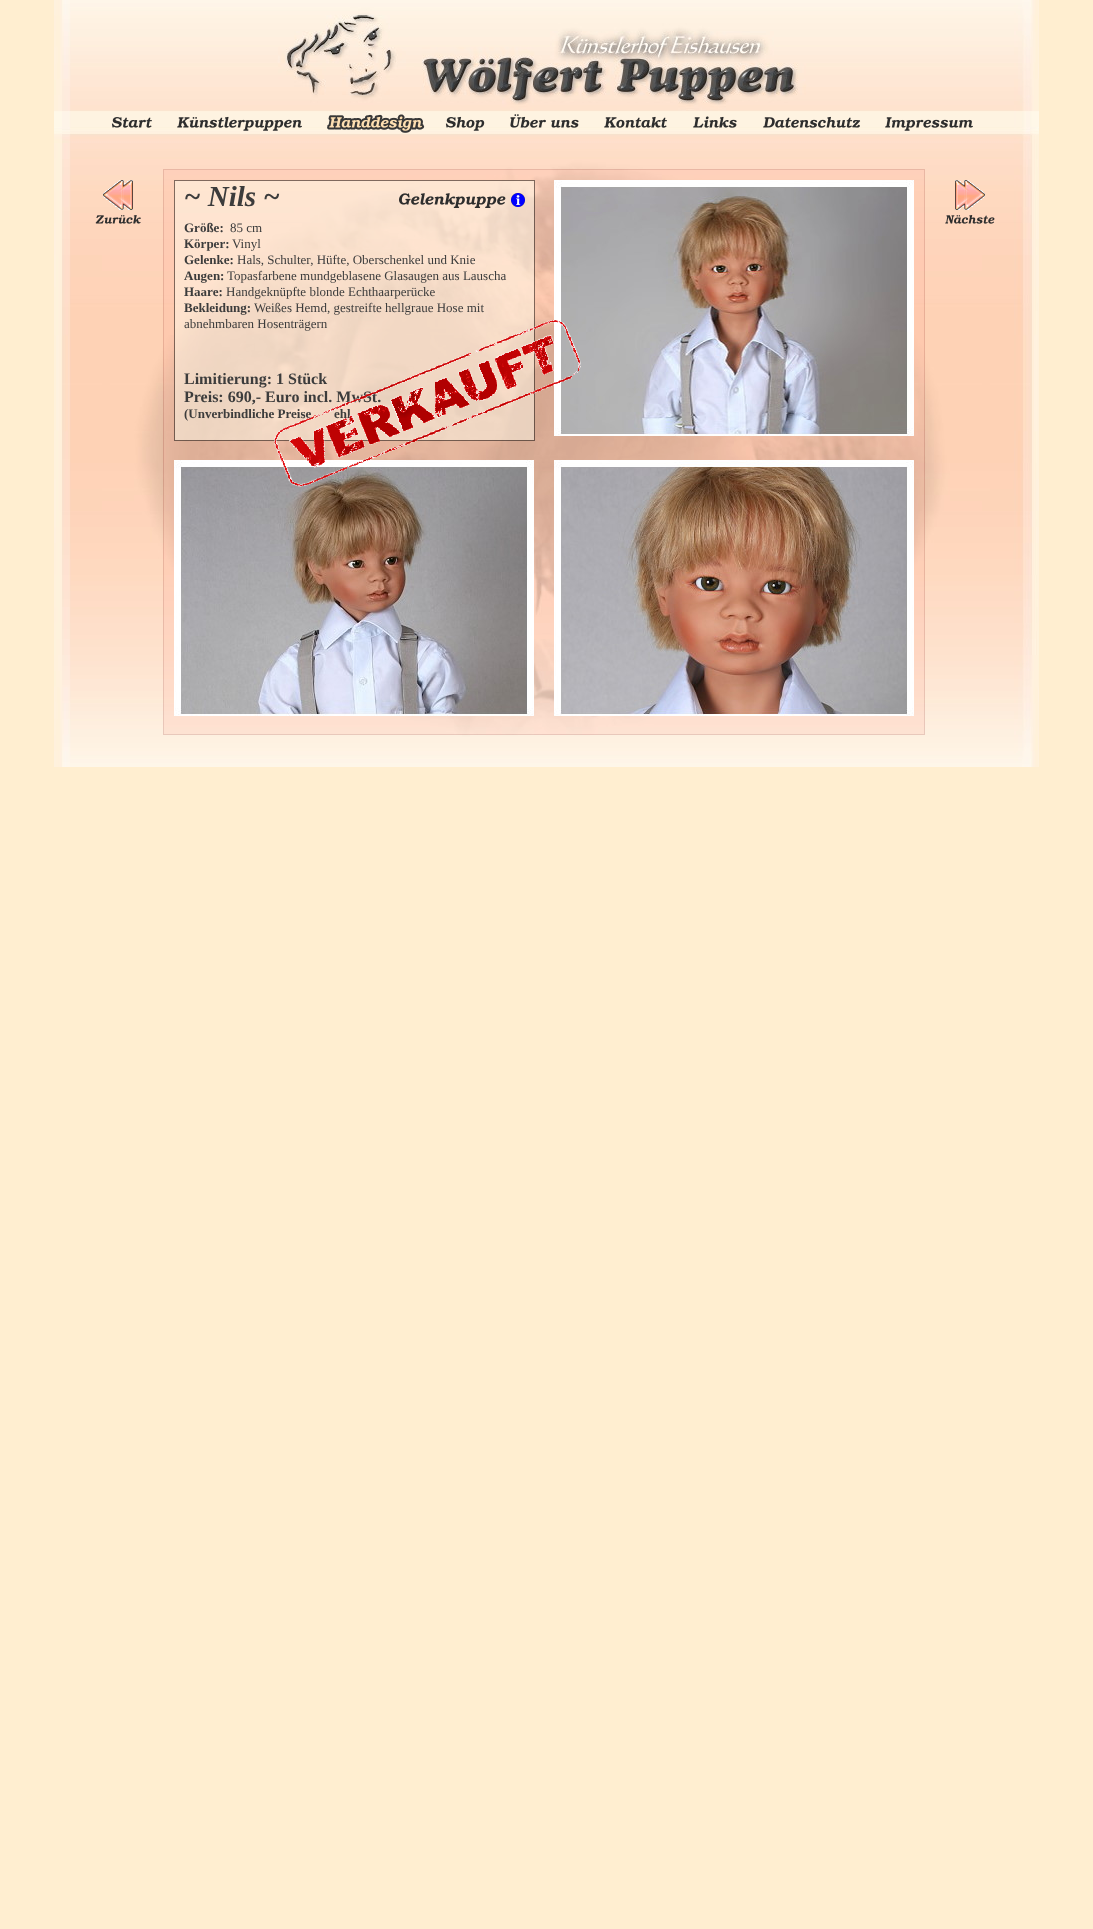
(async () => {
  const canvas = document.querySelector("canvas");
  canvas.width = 1093;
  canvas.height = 1929;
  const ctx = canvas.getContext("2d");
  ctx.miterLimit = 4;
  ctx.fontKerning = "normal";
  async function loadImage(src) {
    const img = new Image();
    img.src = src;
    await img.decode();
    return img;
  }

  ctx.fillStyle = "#ffeed0";
  ctx.fillRect(0, 0, 1093, 1929);
  ctx.drawImage(await loadImage("img/1.png"), 54, 0, 985, 767);
  ctx.drawImage(await loadImage("img/2.png"), 111, 117, 41, 11);
  ctx.drawImage(await loadImage("img/3.png"), 177, 116, 125, 15);
  ctx.drawImage(await loadImage("img/4.png"), 327, 114, 98, 19);
  ctx.drawImage(await loadImage("img/5.png"), 445, 116, 40, 15);
  ctx.drawImage(await loadImage("img/6.png"), 510, 114, 69, 14);
  ctx.drawImage(await loadImage("img/7.png"), 604, 116, 63, 12);
  ctx.drawImage(await loadImage("img/8.png"), 693, 116, 44, 12);
  ctx.drawImage(await loadImage("img/9.png"), 763, 116, 98, 12);
  ctx.drawImage(await loadImage("img/10.png"), 885, 117, 88, 14);
  ctx.drawImage(await loadImage("img/11.png"), 95, 180, 46, 44);
  ctx.drawImage(await loadImage("img/12.png"), 163, 169, 762, 566);
  ctx.drawImage(await loadImage("img/13.png"), 174, 180, 361, 261);
  ctx.drawImage(await loadImage("img/14.png"), 554, 180, 360, 256);
  ctx.drawImage(await loadImage("img/15.png"), 945, 180, 50, 44);
  ctx.drawImage(await loadImage("img/16.png"), 399, 193, 126, 15);
  ctx.drawImage(await loadImage("img/18.png"), 174, 460, 360, 256);
  ctx.drawImage(await loadImage("img/19.png"), 554, 460, 360, 256);
  ctx.font = "italic bold 29px Liberation Serif";
  ctx.fillStyle = "#3c3c3c";
  ctx.fillText("~ Nils ~", 184, 206);
  ctx.font = "bold 13px Liberation Serif";
  ctx.fillText("Größe:", 184, 232);
  ctx.font = "13px Liberation Serif";
  ctx.fillText("85 cm", 230, 232);
  ctx.font = "bold 13px Liberation Serif";
  ctx.fillText("Körper:", 184, 248);
  ctx.font = "13px Liberation Serif";
  ctx.fillText("Vinyl", 232, 248);
  ctx.font = "bold 13px Liberation Serif";
  ctx.fillText("Gelenke:", 184, 264);
  ctx.font = "13px Liberation Serif";
  ctx.fillText("Hals, Schulter, Hüfte, Oberschenkel und Knie", 237, 264);
  ctx.font = "bold 13px Liberation Serif";
  ctx.fillText("Augen:", 184, 280);
  ctx.font = "13px Liberation Serif";
  ctx.fillText("Topasfarbene mundgeblasene Glasaugen aus Lauscha", 227, 280);
  ctx.font = "bold 13px Liberation Serif";
  ctx.fillText("Haare:", 184, 296);
  ctx.font = "13px Liberation Serif";
  ctx.fillText("Handgeknüpfte blonde Echthaarperücke", 226, 296);
  ctx.font = "bold 13px Liberation Serif";
  ctx.fillText("Bekleidung:", 184, 312);
  ctx.font = "13px Liberation Serif";
  ctx.fillText("Weißes Hemd, gestreifte hellgraue Hose mit", 254, 312);
  ctx.fillText("abnehmbaren Hosenträgern", 184, 328);
  ctx.font = "bold 16px Liberation Serif";
  ctx.fillText("Limitierung: 1 Stück", 184, 384);
  ctx.fillText("Preis: 690,- Euro incl. MwSt.", 184, 402);
  ctx.font = "bold 13px Liberation Serif";
  ctx.fillText("(Unverbindliche Preise", 184, 418);
  ctx.fillText("ehl", 334, 418);
  ctx.drawImage(await loadImage("img/17.png"), 274, 320, 307, 167);
})();
